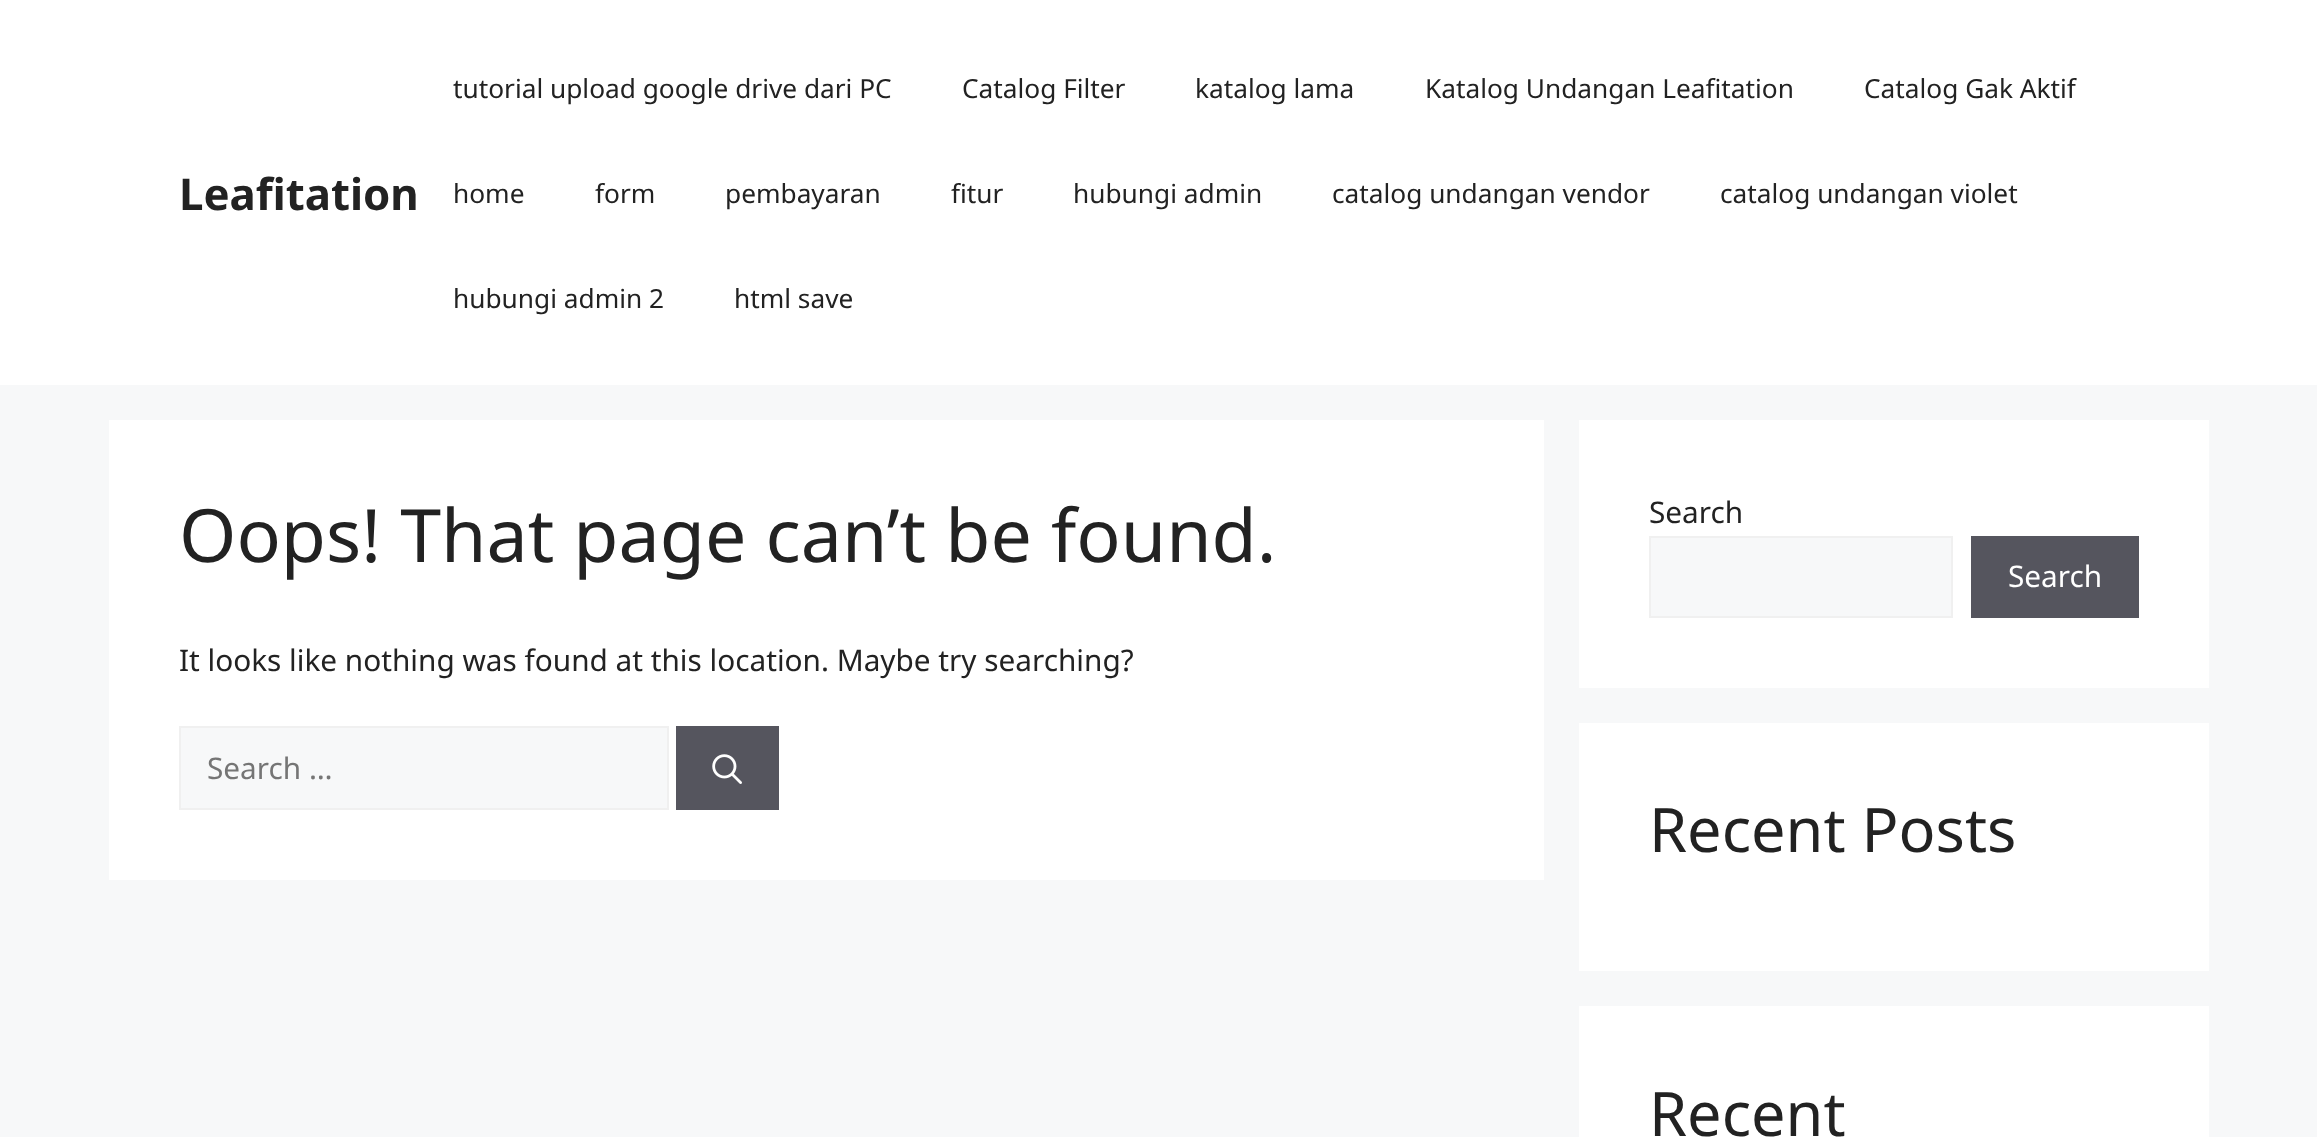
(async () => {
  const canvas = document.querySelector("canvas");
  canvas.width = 2317;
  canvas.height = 1137;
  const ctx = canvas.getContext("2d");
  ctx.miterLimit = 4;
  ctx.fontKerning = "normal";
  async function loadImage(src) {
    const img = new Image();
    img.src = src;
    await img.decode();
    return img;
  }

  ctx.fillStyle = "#f7f8f9";
  ctx.fillRect(0, 0, 2317, 1137);
  ctx.fillStyle = "#ffffff";
  ctx.fillRect(0, 0, 2317, 385);
  ctx.fillRect(109, 420, 1435, 460);
  ctx.fillStyle = "#f7f8f9";
  ctx.beginPath();
  ctx.rect(180, 727, 488, 82);
  ctx.fill();
  ctx.strokeStyle = "#f0f0f0";
  ctx.lineWidth = 2;
  ctx.stroke();
  ctx.fillStyle = "#55555e";
  ctx.fillRect(676, 726, 103, 84);
  ctx.drawImage(await loadImage("img/1.png"), 712, 754, 30, 30);
  ctx.fillStyle = "#ffffff";
  ctx.fillRect(1579, 420, 630, 268);
  ctx.fillStyle = "#f7f8f9";
  ctx.beginPath();
  ctx.rect(1650, 537, 302, 80);
  ctx.fill();
  ctx.stroke();
  for (const [x, y, w, h, color] of [
    [1971, 536, 168, 82, "#55555e"],
    [1579, 723, 630, 248, "#ffffff"],
    [1579, 1006, 630, 131, "#ffffff"],
  ]) {
    ctx.fillStyle = color;
    ctx.fillRect(x, y, w, h);
  }
  ctx.font = "bold 43.75px Noto Sans";
  ctx.fillStyle = "#222222";
  ctx.fillText("Leafitation", 179, 210);
  ctx.font = "26.25px Noto Sans";
  for (const [text, x, y] of [
    ["tutorial upload google drive dari PC", 453, 98],
    ["Catalog Filter", 962, 98],
    ["katalog lama", 1195, 98],
    ["Katalog Undangan Leafitation", 1425, 98],
    ["Catalog Gak Aktif", 1864, 98],
    ["home", 453, 203],
    ["form", 595, 203],
    ["pembayaran", 725, 203],
    ["fitur", 951, 203],
    ["hubungi admin", 1073, 203],
    ["catalog undangan vendor", 1332, 203],
    ["catalog undangan violet", 1720, 203],
    ["hubungi admin 2", 453, 308],
    ["html save", 734, 308],
  ]) {
    ctx.fillText(text, x, y);
  }
  ctx.font = "73.5px Noto Sans";
  ctx.fillText("Oops! That page can’t be found.", 179, 562);
  ctx.font = "29.75px Noto Sans";
  ctx.fillText("It looks like nothing was found at this location. Maybe try searching?", 179, 671);
  ctx.fillStyle = "#757575";
  ctx.fillText("Search …", 207, 779);
  ctx.fillStyle = "#222222";
  ctx.fillText("Search", 1649, 523);
  ctx.fillStyle = "#ffffff";
  ctx.fillText("Search", 2008, 587);
  ctx.font = "61.25px Noto Sans";
  ctx.fillStyle = "#222222";
  ctx.fillText("Recent Posts", 1649, 852);
  ctx.fillText("Recent", 1649, 1136);
})();
